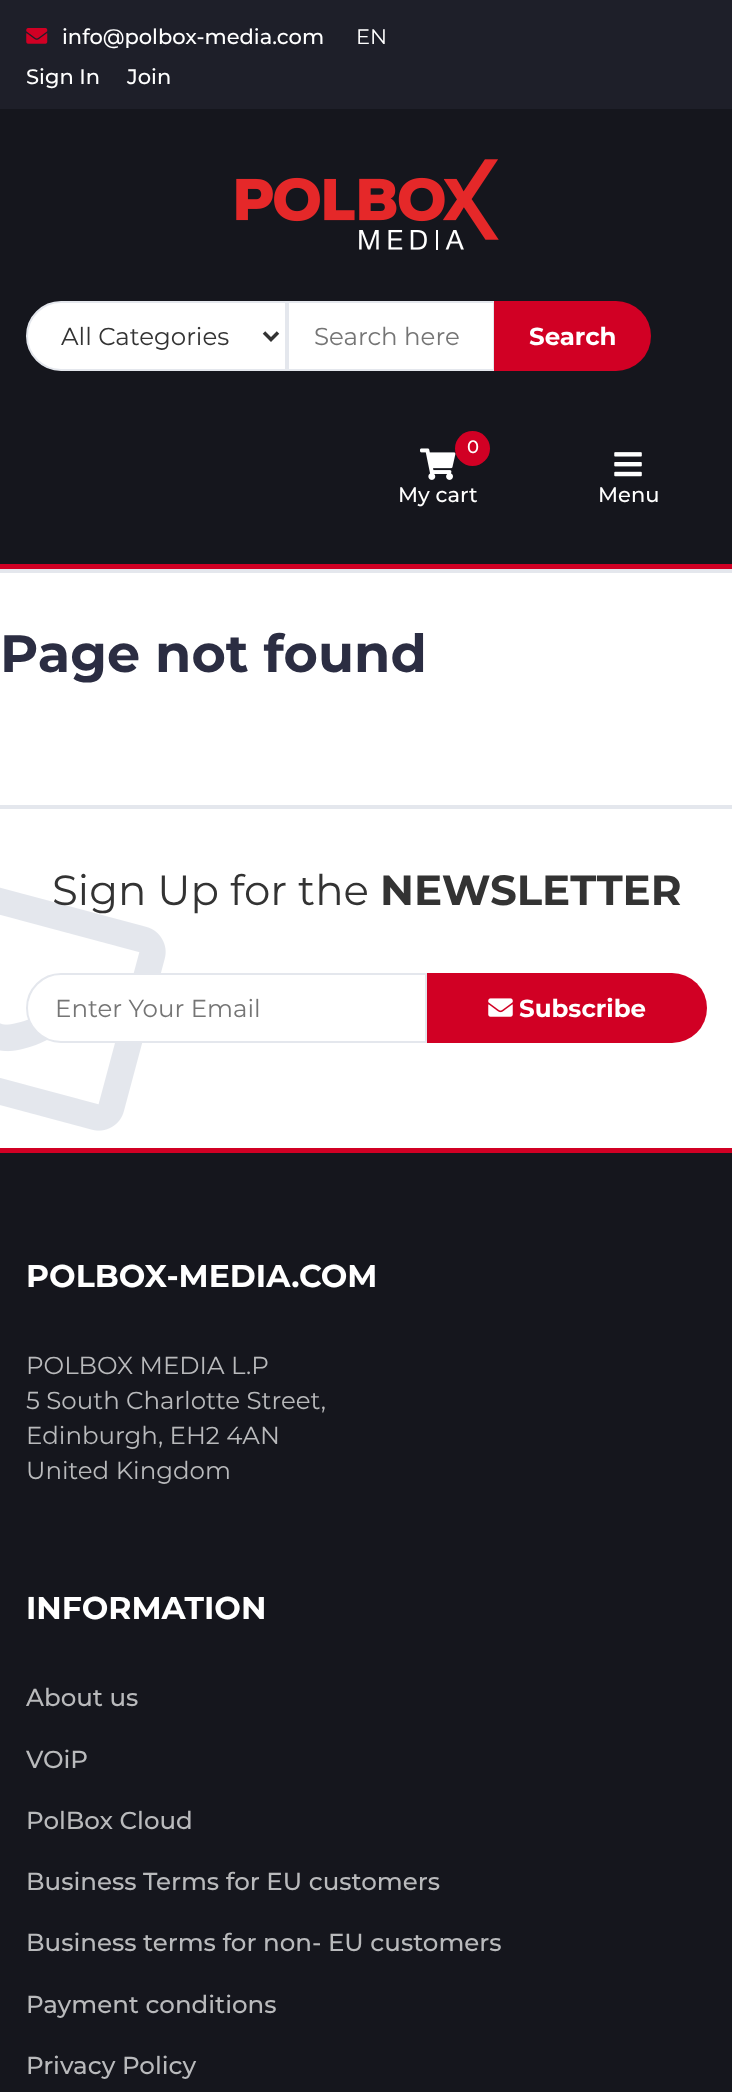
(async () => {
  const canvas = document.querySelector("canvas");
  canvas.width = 732;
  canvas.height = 2092;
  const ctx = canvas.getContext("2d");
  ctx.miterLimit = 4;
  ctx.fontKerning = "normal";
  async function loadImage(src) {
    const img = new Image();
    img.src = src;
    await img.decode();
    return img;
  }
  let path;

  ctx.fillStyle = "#ffffff";
  ctx.fillRect(0, 0, 732, 2092);
  ctx.fillStyle = "#1e1f29";
  ctx.fillRect(0, 0, 732, 109);
  ctx.drawImage(await loadImage("img/1.png"), 26, 28, 22, 16);
  ctx.fillStyle = "#15161d";
  ctx.fillRect(0, 109, 732, 455);
  ctx.drawImage(await loadImage("img/2.png"), 236, 159, 263, 91);
  ctx.fillStyle = "#ffffff";
  ctx.beginPath();
  ctx.roundRect(27, 302, 259, 68, [34, 0, 0, 34]);
  ctx.fill();
  ctx.strokeStyle = "#e4e7ed";
  ctx.lineWidth = 2;
  ctx.stroke();
  path = new Path2D("M264 332.5L271 339.5L278 332.5");
  ctx.strokeStyle = "#333333";
  ctx.lineWidth = 3.5;
  ctx.stroke(path);
  ctx.beginPath();
  ctx.rect(288, 302, 206, 68);
  ctx.fill();
  ctx.strokeStyle = "#e4e7ed";
  ctx.lineWidth = 2;
  ctx.stroke();
  ctx.fillStyle = "#d10024";
  ctx.beginPath();
  ctx.roundRect(494, 301, 157, 70, [0, 35, 35, 0]);
  ctx.fill();
  ctx.drawImage(await loadImage("img/3.png"), 420, 448, 36, 32);
  ctx.beginPath();
  ctx.arc(472.5, 448.5, 17.5, 0, Math.PI * 2);
  ctx.fill();
  ctx.drawImage(await loadImage("img/4.png"), 614, 452, 28, 25);
  for (const [x, y, w, h, color] of [
    [0, 564, 732, 5, "#d10024"],
    [0, 569, 732, 4, "#e4e7ed"],
    [0, 805, 732, 4, "#e4e7ed"],
    [0, 1148, 732, 5, "#d10024"],
  ]) {
    ctx.fillStyle = color;
    ctx.fillRect(x, y, w, h);
  }
  ctx.drawImage(await loadImage("img/5.png"), 0, 887, 166, 244);
  ctx.beginPath();
  ctx.roundRect(427, 973, 280, 70, [0, 35, 35, 0]);
  ctx.fill();
  ctx.drawImage(await loadImage("img/6.png"), 488, 998, 25, 19);
  ctx.fillStyle = "#ffffff";
  ctx.beginPath();
  ctx.roundRect(27, 974, 399, 68, [34, 0, 0, 34]);
  ctx.fill();
  ctx.stroke();
  ctx.fillStyle = "#15161d";
  ctx.fillRect(0, 1153, 732, 939);
  ctx.font = "500 21px Montserrat";
  ctx.fillStyle = "#ffffff";
  ctx.fillText("info@polbox-media.com", 62, 44);
  ctx.font = "21px Montserrat";
  ctx.fillText("EN", 356, 44);
  ctx.font = "500 21px Montserrat";
  ctx.fillText("Sign In", 26, 84);
  ctx.fillText("Join", 127, 84);
  ctx.font = "24.5px Montserrat";
  ctx.fillStyle = "#333333";
  ctx.fillText("All Categories", 61, 345);
  ctx.fillStyle = "#757575";
  ctx.fillText("Search here", 314, 345);
  ctx.font = "bold 24.5px Montserrat";
  ctx.fillStyle = "#ffffff";
  ctx.fillText("Search", 529, 345);
  ctx.font = "500 18px Montserrat";
  ctx.fillText("0", 467, 453);
  ctx.font = "500 21px Montserrat";
  ctx.fillText("My cart", 398, 502);
  ctx.fillText("Menu", 598, 502);
  ctx.font = "bold 52.5px Montserrat";
  ctx.fillStyle = "#2b2d42";
  ctx.fillText("Page not found", 0, 672);
  ctx.font = "42px Montserrat";
  ctx.fillStyle = "#333333";
  ctx.fillText("Sign Up for the", 52, 905);
  ctx.font = "bold 42px Montserrat";
  ctx.fillText("NEWSLETTER", 380, 905);
  ctx.font = "bold 24.5px Montserrat";
  ctx.fillStyle = "#ffffff";
  ctx.fillText("Subscribe", 519, 1017);
  ctx.font = "24.5px Montserrat";
  ctx.fillStyle = "#757575";
  ctx.fillText("Enter Your Email", 55, 1017);
  ctx.font = "bold 31.5px Montserrat";
  ctx.fillStyle = "#ffffff";
  ctx.fillText("POLBOX-MEDIA.COM", 26, 1287);
  ctx.font = "24.5px Montserrat";
  ctx.fillStyle = "#b9babc";
  for (const [text, x, y] of [
    ["POLBOX MEDIA L.P", 26, 1374],
    ["5 South Charlotte Street,", 26, 1409],
    ["Edinburgh, EH2 4AN", 26, 1444],
    ["United Kingdom", 26, 1479],
  ]) {
    ctx.fillText(text, x, y);
  }
  ctx.font = "bold 31.5px Montserrat";
  ctx.fillStyle = "#ffffff";
  ctx.fillText("INFORMATION", 26, 1619);
  ctx.font = "500 24.5px Montserrat";
  ctx.fillStyle = "#b9babc";
  for (const [text, x, y] of [
    ["About us", 26, 1706],
    ["VOiP", 26, 1768],
    ["PolBox Cloud", 26, 1829],
    ["Business Terms for EU customers", 26, 1890],
    ["Business terms for non- EU customers", 26, 1951],
    ["Payment conditions", 26, 2013],
    ["Privacy Policy", 26, 2074],
  ]) {
    ctx.fillText(text, x, y);
  }
})();
